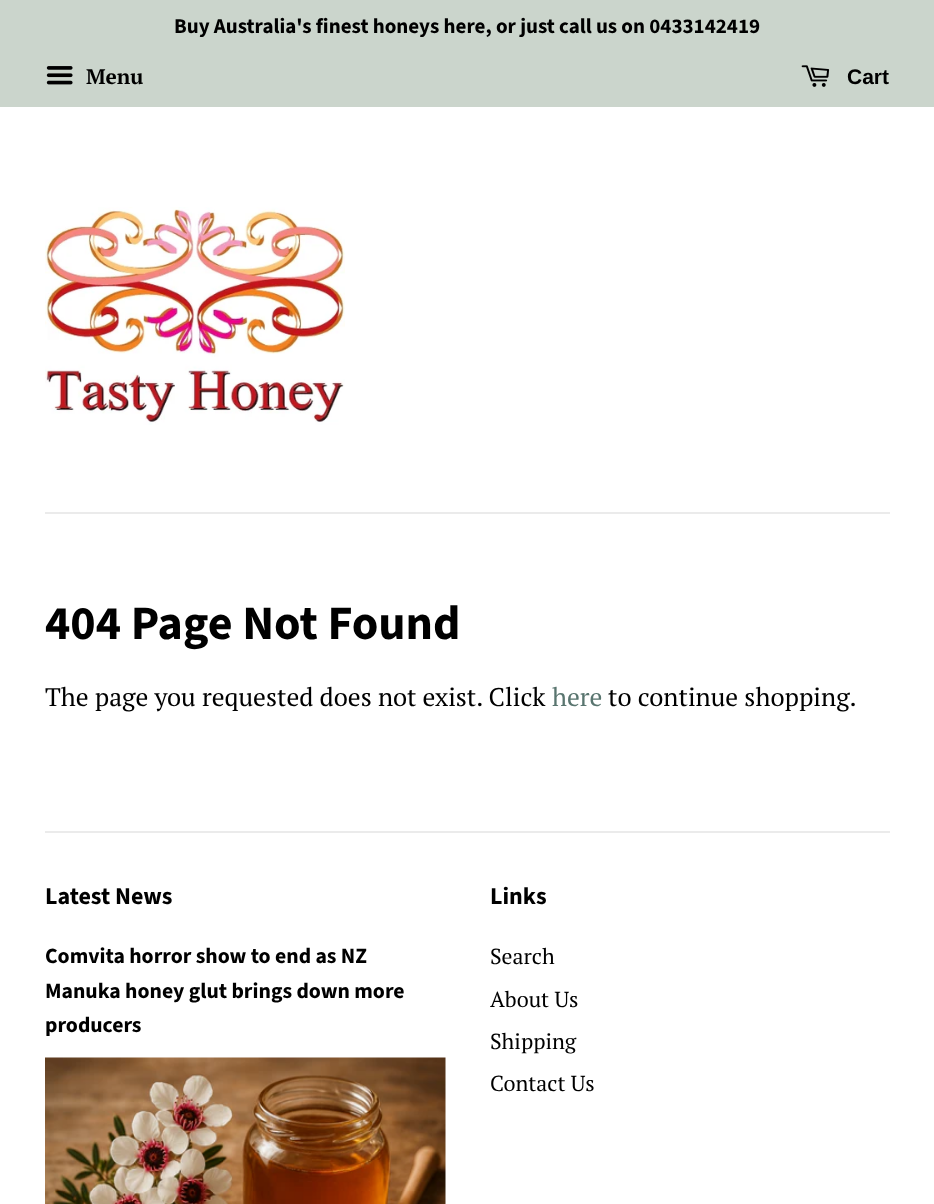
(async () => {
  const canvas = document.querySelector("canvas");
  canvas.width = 934;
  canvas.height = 1204;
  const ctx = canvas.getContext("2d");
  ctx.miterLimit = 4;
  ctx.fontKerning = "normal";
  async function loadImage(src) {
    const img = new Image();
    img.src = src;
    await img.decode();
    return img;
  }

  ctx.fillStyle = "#ffffff";
  ctx.fillRect(0, 0, 934, 1204);
  ctx.fillStyle = "#cbd5cc";
  ctx.fillRect(0, 0, 934, 107);
  ctx.drawImage(await loadImage("img/1.png"), 46, 66, 27, 19);
  ctx.drawImage(await loadImage("img/2.png"), 801, 65, 29, 22);
  ctx.fillStyle = "#ebebeb";
  ctx.fillRect(45, 512, 845, 2);
  ctx.drawImage(await loadImage("img/3.png"), 45, 207, 300, 218);
  ctx.fillRect(45, 831, 845, 2);
  ctx.drawImage(await loadImage("img/4.png"), 45, 1057, 401, 147);
  ctx.font = "bold 21px Source Sans Pro";
  ctx.fillStyle = "#000000";
  ctx.fillText("Buy Australia's finest honeys here, or just call us on 0433142419", 174, 33);
  ctx.font = "bold 21px PT Serif";
  ctx.fillText("Menu", 86, 84);
  ctx.font = "bold 21px Liberation Sans";
  ctx.fillText("Cart", 847, 84);
  ctx.font = "bold 48px Source Sans Pro";
  ctx.fillText("404 Page Not Found", 45, 639);
  ctx.font = "25.5px PT Serif";
  ctx.fillText("The page you requested does not exist. Click", 45, 706);
  ctx.fillStyle = "#59756f";
  ctx.fillText("here", 552, 706);
  ctx.fillStyle = "#000000";
  ctx.fillText("to continue shopping.", 608, 706);
  ctx.font = "bold 24px Source Sans Pro";
  ctx.fillText("Latest News", 45, 904);
  ctx.font = "bold 21.7px Source Sans Pro";
  for (const [text, x, y] of [
    ["Comvita horror show to end as NZ", 45, 963],
    ["Manuka honey glut brings down more", 45, 998],
    ["producers", 45, 1032],
  ]) {
    ctx.fillText(text, x, y);
  }
  ctx.font = "bold 24px Source Sans Pro";
  ctx.fillText("Links", 490, 904);
  ctx.font = "21.7px PT Serif";
  for (const [text, x, y] of [
    ["Search", 490, 964],
    ["About Us", 490, 1007],
    ["Shipping", 490, 1049],
    ["Contact Us", 490, 1091],
  ]) {
    ctx.fillText(text, x, y);
  }
})();
